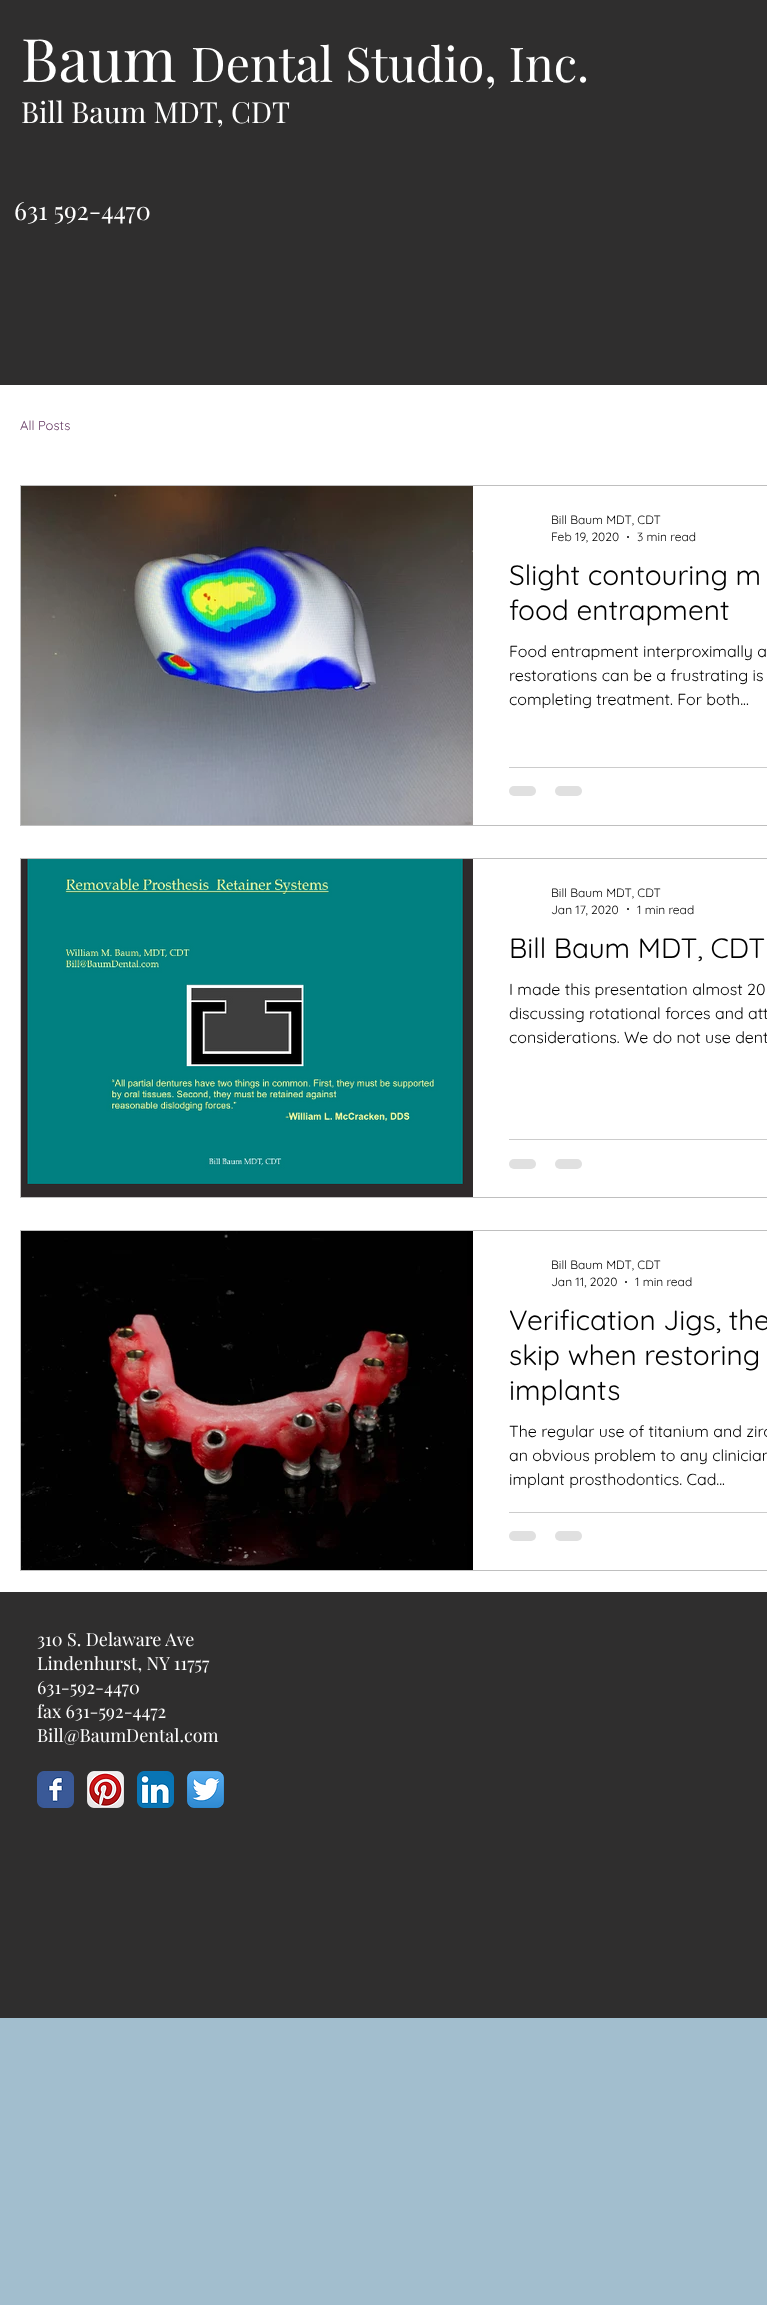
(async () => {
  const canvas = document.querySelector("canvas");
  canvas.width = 767;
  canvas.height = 2305;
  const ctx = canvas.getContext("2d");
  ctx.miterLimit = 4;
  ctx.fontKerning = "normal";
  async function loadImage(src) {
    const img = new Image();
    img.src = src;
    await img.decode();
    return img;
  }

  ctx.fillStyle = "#a2bece";
  ctx.fillRect(0, 0, 767, 2305);
  ctx.fillStyle = "#2f2e2e";
  ctx.fillRect(0, 0, 767, 385);
  ctx.fillStyle = "#ffffff";
  ctx.fillRect(0, 385, 767, 1207);
  ctx.strokeStyle = "#bfbfbf";
  ctx.strokeRect(20.5, 485.5, 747, 340);
  ctx.drawImage(await loadImage("img/1.png"), 21, 486, 452, 339);
  ctx.fillStyle = "#000000";
  ctx.beginPath();
  ctx.arc(628, 537, 1, 0, Math.PI * 2);
  ctx.fill();
  ctx.fillStyle = "#cccccc";
  ctx.fillRect(509, 767, 258, 1);
  ctx.fillStyle = "#e0e0e0";
  ctx.beginPath();
  ctx.roundRect(509, 786, 27, 10, 5);
  ctx.fill();
  ctx.beginPath();
  ctx.roundRect(555, 786, 27, 10, 5);
  ctx.fill();
  ctx.strokeRect(20.5, 858.5, 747, 339);
  ctx.drawImage(await loadImage("img/2.png"), 21, 859, 452, 338);
  ctx.fillStyle = "#000000";
  ctx.beginPath();
  ctx.arc(628, 909, 1, 0, Math.PI * 2);
  ctx.fill();
  ctx.fillStyle = "#cccccc";
  ctx.fillRect(509, 1139, 258, 1);
  ctx.fillStyle = "#e0e0e0";
  ctx.beginPath();
  ctx.roundRect(509, 1159, 27, 10, 5);
  ctx.fill();
  ctx.beginPath();
  ctx.roundRect(555, 1159, 27, 10, 5);
  ctx.fill();
  ctx.strokeRect(20.5, 1230.5, 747, 340);
  ctx.drawImage(await loadImage("img/3.png"), 21, 1231, 446, 339);
  ctx.drawImage(await loadImage("img/4.png"), 467, 1231, 6, 339);
  ctx.fillStyle = "#000000";
  ctx.beginPath();
  ctx.arc(626, 1282, 1, 0, Math.PI * 2);
  ctx.fill();
  ctx.fillStyle = "#cccccc";
  ctx.fillRect(509, 1512, 258, 1);
  ctx.fillStyle = "#e0e0e0";
  ctx.beginPath();
  ctx.roundRect(509, 1531, 27, 10, 5);
  ctx.fill();
  ctx.beginPath();
  ctx.roundRect(555, 1531, 27, 10, 5);
  ctx.fill();
  ctx.fillStyle = "#2f2e2e";
  ctx.fillRect(0, 1592, 767, 426);
  ctx.drawImage(await loadImage("img/5.png"), 37, 1771, 37, 37);
  ctx.drawImage(await loadImage("img/6.png"), 87, 1771, 37, 37);
  ctx.drawImage(await loadImage("img/7.png"), 137, 1771, 37, 37);
  ctx.drawImage(await loadImage("img/8.png"), 187, 1771, 37, 37);
  ctx.font = "60px Playfair Display";
  ctx.fillStyle = "#ffffff";
  ctx.fillText("Baum", 21, 82);
  ctx.font = "48px Playfair Display";
  ctx.fillText("Dental Studio, Inc.", 191, 82);
  ctx.font = "29px Playfair Display";
  ctx.fillText("Bill Baum MDT, CDT", 21, 123);
  ctx.font = "25px Playfair Display";
  ctx.fillText("631 592-4470", 14, 220);
  ctx.font = "13px Quicksand";
  ctx.fillStyle = "#633761";
  ctx.fillText("All Posts", 20, 430);
  ctx.font = "12px Quicksand";
  ctx.fillStyle = "#000000";
  for (const [text, x, y] of [
    ["Bill Baum MDT, CDT", 551, 524],
    ["Feb 19, 2020", 551, 541],
    ["3 min read", 637, 541],
  ]) {
    ctx.fillText(text, x, y);
  }
  ctx.font = "28px Quicksand";
  ctx.fillText("Slight contouring m", 509, 585);
  ctx.fillText("food entrapment", 509, 620);
  ctx.font = "16px Quicksand";
  for (const [text, x, y] of [
    ["Food entrapment interproximally a", 509, 657],
    ["restorations can be a frustrating is", 509, 681],
    ["completing treatment. For both...", 509, 705],
  ]) {
    ctx.fillText(text, x, y);
  }
  ctx.font = "12px Quicksand";
  for (const [text, x, y] of [
    ["Bill Baum MDT, CDT", 551, 897],
    ["Jan 17, 2020", 551, 914],
    ["1 min read", 637, 914],
  ]) {
    ctx.fillText(text, x, y);
  }
  ctx.font = "28px Quicksand";
  ctx.fillText("Bill Baum MDT, CDT", 509, 958);
  ctx.font = "16px Quicksand";
  for (const [text, x, y] of [
    ["I made this presentation almost 20", 509, 995],
    ["discussing rotational forces and att", 509, 1019],
    ["considerations. We do not use dent", 509, 1043],
  ]) {
    ctx.fillText(text, x, y);
  }
  ctx.font = "12px Quicksand";
  for (const [text, x, y] of [
    ["Bill Baum MDT, CDT", 551, 1269],
    ["Jan 11, 2020", 551, 1286],
    ["1 min read", 635, 1286],
  ]) {
    ctx.fillText(text, x, y);
  }
  ctx.font = "28px Quicksand";
  for (const [text, x, y] of [
    ["Verification Jigs, the", 509, 1330],
    ["skip when restoring", 509, 1365],
    ["implants", 509, 1400],
  ]) {
    ctx.fillText(text, x, y);
  }
  ctx.font = "16px Quicksand";
  for (const [text, x, y] of [
    ["The regular use of titanium and zirc", 509, 1437],
    ["an obvious problem to any clinician", 509, 1461],
    ["implant prosthodontics. Cad...", 509, 1485],
  ]) {
    ctx.fillText(text, x, y);
  }
  ctx.font = "18px Playfair Display";
  ctx.fillStyle = "#ffffff";
  for (const [text, x, y] of [
    ["310 S. Delaware Ave", 37, 1646],
    ["Lindenhurst, NY 11757", 37, 1670],
    ["631-592-4470", 37, 1694],
    ["fax 631-592-4472", 37, 1718],
    ["Bill@BaumDental.com", 37, 1742],
  ]) {
    ctx.fillText(text, x, y);
  }
})();
